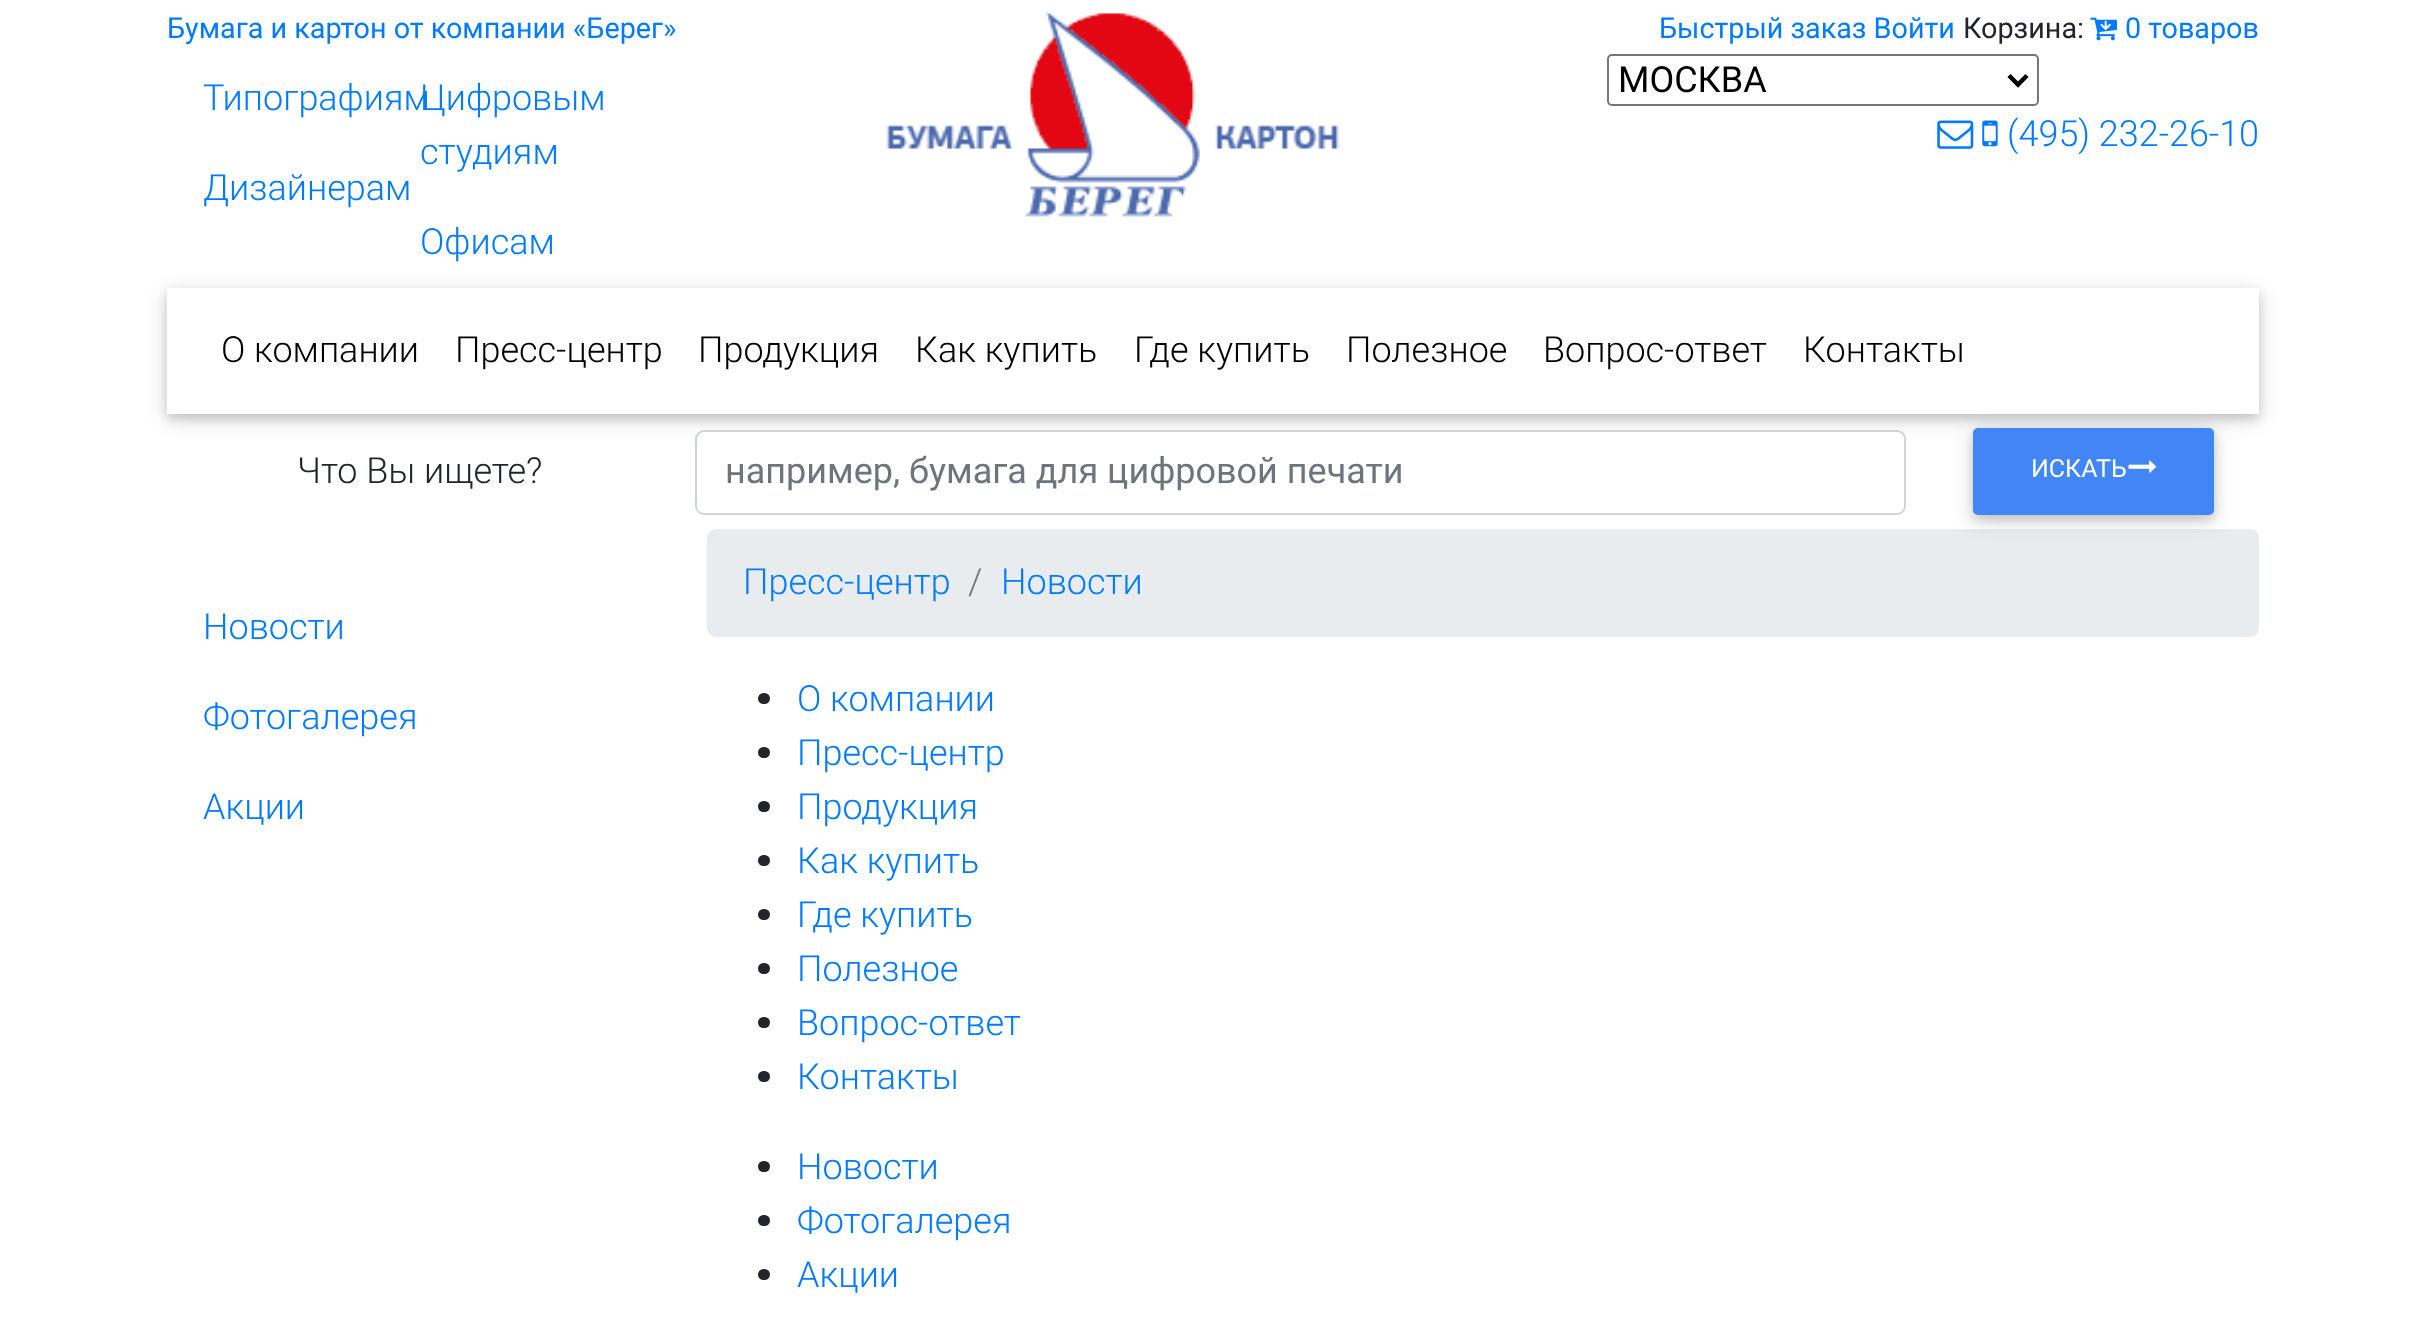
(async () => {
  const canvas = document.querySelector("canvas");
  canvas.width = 2425;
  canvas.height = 1338;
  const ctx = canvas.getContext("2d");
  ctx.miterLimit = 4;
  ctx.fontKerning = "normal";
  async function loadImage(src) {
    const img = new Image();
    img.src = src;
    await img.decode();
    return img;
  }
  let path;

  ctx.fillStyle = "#ffffff";
  ctx.fillRect(0, 0, 2425, 1338);
  ctx.drawImage(await loadImage("img/1.png"), 886, 11, 453, 206);
  ctx.drawImage(await loadImage("img/2.png"), 2090, 17, 27, 24);
  ctx.beginPath();
  ctx.roundRect(1608, 55, 430, 50, 4);
  ctx.strokeStyle = "#767676";
  ctx.lineWidth = 2;
  ctx.stroke();
  path = new Path2D("M2009 75.5L2018 84.5L2027 75.5");
  ctx.strokeStyle = "#000000";
  ctx.lineWidth = 4.5;
  ctx.stroke(path);
  ctx.drawImage(await loadImage("img/3.png"), 1937, 120, 37, 29);
  ctx.drawImage(await loadImage("img/4.png"), 1982, 120, 16, 27);
  ctx.save();
  path = new Path2D("M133 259H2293V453H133ZM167 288H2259V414H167Z");
  ctx.clip(path, "evenodd");
  ctx.fillStyle = "rgba(0, 0, 0, 0.12)";
  ctx.filter = "blur(11px)";
  ctx.beginPath();
  ctx.rect(167, 293, 2092, 126);
  ctx.fill();
  ctx.filter = "none";
  ctx.restore();
  ctx.save();
  path = new Path2D("M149 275H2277V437H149ZM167 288H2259V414H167Z");
  ctx.clip(path, "evenodd");
  ctx.fillStyle = "rgba(0, 0, 0, 0.16)";
  ctx.filter = "blur(5.5px)";
  ctx.beginPath();
  ctx.rect(167, 293, 2092, 126);
  ctx.fill();
  ctx.filter = "none";
  ctx.restore();
  ctx.beginPath();
  ctx.roundRect(698, 432, 1206, 81, 7);
  ctx.fill();
  ctx.beginPath();
  ctx.roundRect(696, 431, 1209, 83, 8);
  ctx.strokeStyle = "#ced4da";
  ctx.lineWidth = 2;
  ctx.stroke();
  ctx.fillStyle = "#e9ecef";
  ctx.beginPath();
  ctx.roundRect(707, 529, 1552, 108, 9);
  ctx.fill();
  ctx.fillStyle = "rgba(0, 0, 0, 0.12)";
  ctx.filter = "blur(11px)";
  ctx.beginPath();
  ctx.roundRect(1973, 432, 241, 88, 5);
  ctx.fill();
  ctx.filter = "none";
  ctx.fillStyle = "rgba(0, 0, 0, 0.16)";
  ctx.filter = "blur(5.5px)";
  ctx.beginPath();
  ctx.roundRect(1973, 432, 241, 88, 5);
  ctx.fill();
  ctx.filter = "none";
  ctx.fillStyle = "#4285f4";
  ctx.beginPath();
  ctx.roundRect(1973, 428, 241, 87, 5);
  ctx.fill();
  ctx.drawImage(await loadImage("img/5.png"), 2128, 460, 29, 13);
  ctx.fillStyle = "#212529";
  ctx.beginPath();
  ctx.roundRect(758, 693, 12, 11, 5.5);
  ctx.fill();
  ctx.beginPath();
  ctx.roundRect(758, 747, 12, 11, 5.5);
  ctx.fill();
  ctx.beginPath();
  ctx.roundRect(758, 801, 12, 11, 5.5);
  ctx.fill();
  ctx.beginPath();
  ctx.roundRect(758, 855, 12, 11, 5.5);
  ctx.fill();
  ctx.beginPath();
  ctx.roundRect(758, 909, 12, 11, 5.5);
  ctx.fill();
  ctx.beginPath();
  ctx.roundRect(758, 963, 12, 11, 5.5);
  ctx.fill();
  ctx.beginPath();
  ctx.roundRect(758, 1017, 12, 11, 5.5);
  ctx.fill();
  ctx.beginPath();
  ctx.roundRect(758, 1071, 12, 11, 5.5);
  ctx.fill();
  ctx.beginPath();
  ctx.roundRect(758, 1161, 12, 11, 5.5);
  ctx.fill();
  ctx.beginPath();
  ctx.roundRect(758, 1215, 12, 11, 5.5);
  ctx.fill();
  ctx.beginPath();
  ctx.roundRect(758, 1269, 12, 11, 5.5);
  ctx.fill();
  ctx.font = "28.75px Roboto";
  ctx.fillStyle = "#007bff";
  ctx.fillText("Бумага и картон от компании «Берег»", 167, 38);
  ctx.font = "300 36px Roboto";
  for (const [text, x, y] of [
    ["Типографиям", 203, 110],
    ["Дизайнерам", 203, 200],
    ["Цифровым", 420, 110],
    ["студиям", 420, 164],
    ["Офисам", 420, 254],
  ]) {
    ctx.fillText(text, x, y);
  }
  ctx.font = "28.75px Roboto";
  ctx.fillText("Быстрый заказ Войти", 1659, 38);
  ctx.fillStyle = "#212529";
  ctx.fillText("Корзина:", 1963, 38);
  ctx.fillStyle = "#007bff";
  ctx.fillText("0 товаров", 2125, 38);
  ctx.font = "36px Roboto";
  ctx.fillStyle = "#000000";
  ctx.fillText("МОСКВА", 1618, 92);
  ctx.font = "300 36px Roboto";
  ctx.fillStyle = "#007bff";
  ctx.fillText("(495) 232-26-10", 2007, 146);
  ctx.fillStyle = "#000000";
  for (const [text, x, y] of [
    ["О компании", 221, 362],
    ["Пресс-центр", 455, 362],
    ["Продукция", 698, 362],
    ["Как купить", 915, 362],
    ["Где купить", 1134, 362],
    ["Полезное", 1346, 362],
    ["Вопрос-ответ", 1543, 362],
    ["Контакты", 1803, 362],
  ]) {
    ctx.fillText(text, x, y);
  }
  ctx.fillStyle = "#212529";
  ctx.fillText("Что Вы ищете?", 297, 483);
  ctx.font = "36px Roboto";
  ctx.fillStyle = "#6c757d";
  ctx.fillText("например, бумага для цифровой печати", 725, 483);
  ctx.font = "25px Roboto";
  ctx.fillStyle = "#ffffff";
  ctx.fillText("ИСКАТЬ", 2031, 477);
  ctx.font = "300 36px Roboto";
  ctx.fillStyle = "#007bff";
  for (const [text, x, y] of [
    ["Новости", 203, 639],
    ["Фотогалерея", 203, 729],
    ["Акции", 203, 819],
    ["Пресс-центр", 743, 594],
  ]) {
    ctx.fillText(text, x, y);
  }
  ctx.fillStyle = "#6c757d";
  ctx.fillText("/", 968, 594);
  ctx.fillStyle = "#007bff";
  for (const [text, x, y] of [
    ["Новости", 1001, 594],
    ["О компании", 797, 711],
    ["Пресс-центр", 797, 765],
    ["Продукция", 797, 819],
    ["Как купить", 797, 873],
    ["Где купить", 797, 927],
    ["Полезное", 797, 981],
    ["Вопрос-ответ", 797, 1035],
    ["Контакты", 797, 1089],
    ["Новости", 797, 1179],
    ["Фотогалерея", 797, 1233],
    ["Акции", 797, 1287],
  ]) {
    ctx.fillText(text, x, y);
  }
})();
